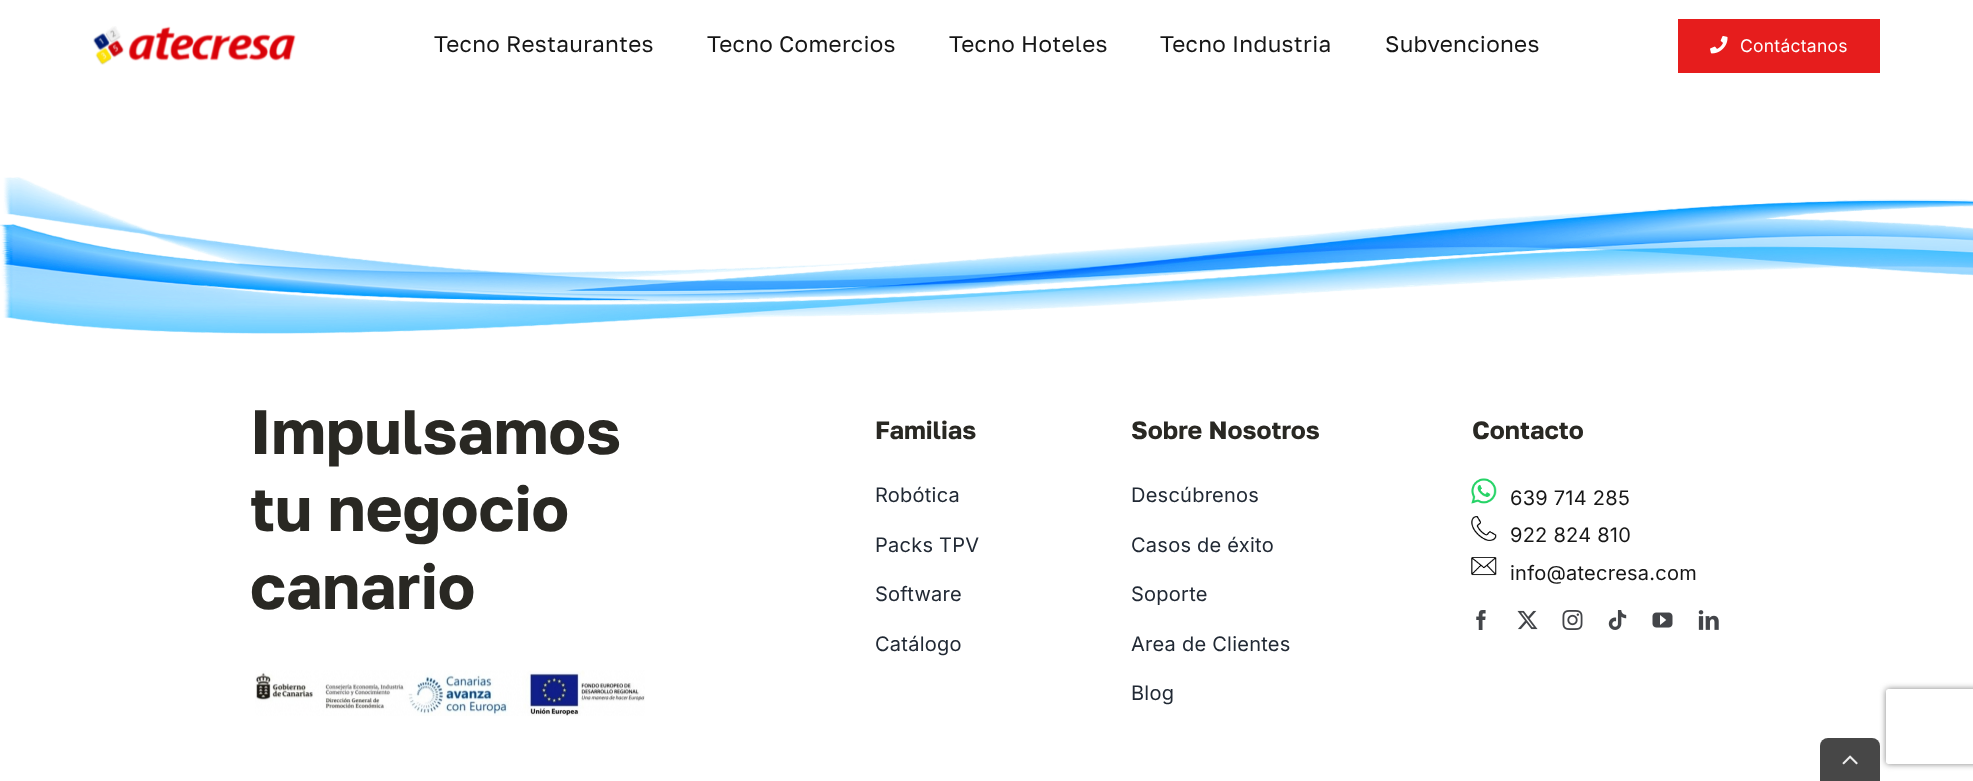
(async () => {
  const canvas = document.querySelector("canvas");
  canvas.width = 1973;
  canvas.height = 781;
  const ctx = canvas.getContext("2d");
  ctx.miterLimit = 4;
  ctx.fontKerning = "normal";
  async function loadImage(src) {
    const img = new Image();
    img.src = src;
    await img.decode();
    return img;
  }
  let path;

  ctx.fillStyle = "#ffffff";
  ctx.fillRect(0, 0, 1973, 781);
  ctx.drawImage(await loadImage("img/1.png"), 93, 26, 203, 39);
  ctx.fillStyle = "#e61d1d";
  ctx.fillRect(1678, 19, 202, 54);
  ctx.drawImage(await loadImage("img/2.png"), 1710, 36, 18, 18);
  ctx.drawImage(await loadImage("img/3.png"), 0, 177, 1973, 157);
  ctx.drawImage(await loadImage("img/4.png"), 255, 670, 390, 46);
  ctx.drawImage(await loadImage("img/5.png"), 1471, 478, 26, 26);
  ctx.drawImage(await loadImage("img/6.png"), 1471, 516, 26, 25);
  ctx.drawImage(await loadImage("img/7.png"), 1471, 557, 26, 19);
  ctx.drawImage(await loadImage("img/8.png"), 1476, 610, 10, 20);
  ctx.drawImage(await loadImage("img/9.png"), 1517, 610, 21, 20);
  ctx.drawImage(await loadImage("img/10.png"), 1562, 610, 21, 20);
  ctx.drawImage(await loadImage("img/11.png"), 1608, 610, 19, 20);
  ctx.drawImage(await loadImage("img/12.png"), 1652, 612, 21, 16);
  ctx.drawImage(await loadImage("img/13.png"), 1698, 610, 21, 20);
  ctx.save();
  path = new Path2D("M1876 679H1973V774H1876ZM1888.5 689H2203.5C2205 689 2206 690 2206 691.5V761.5C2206 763 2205 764 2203.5 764H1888.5C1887 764 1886 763 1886 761.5V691.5C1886 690 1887 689 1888.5 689Z");
  ctx.clip(path, "evenodd");
  ctx.fillStyle = "#808080";
  ctx.filter = "blur(3px)";
  ctx.beginPath();
  ctx.roundRect(1886, 689, 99, 75, 2.5);
  ctx.fill();
  ctx.filter = "none";
  ctx.restore();
  ctx.fillStyle = "#474747";
  ctx.beginPath();
  ctx.roundRect(1820, 738, 60, 43, [8, 8, 0, 0]);
  ctx.fill();
  ctx.drawImage(await loadImage("img/14.png"), 1842, 755, 16, 10);
  ctx.letterSpacing = "0.3px";
  ctx.font = "22.5px Golos Text";
  ctx.fillStyle = "#161616";
  for (const [text, x, y] of [
    ["Tecno Restaurantes", 434, 52],
    ["Tecno Comercios", 707, 52],
    ["Tecno Hoteles", 949, 52],
    ["Tecno Industria", 1160, 52],
    ["Subvenciones", 1385, 52],
  ]) {
    ctx.fillText(text, x, y);
  }
  ctx.letterSpacing = "0.25px";
  ctx.font = "17.5px Inter";
  ctx.fillStyle = "#ffffff";
  ctx.fillText("Contáctanos", 1740, 52);
  ctx.letterSpacing = "0px";
  ctx.font = "bold 62.5px Golos Text";
  ctx.fillStyle = "#292823";
  for (const [text, x, y] of [
    ["Impulsamos", 250, 454],
    ["tu negocio", 250, 531],
    ["canario", 250, 609],
  ]) {
    ctx.fillText(text, x, y);
  }
  ctx.font = "bold 25px Golos Text";
  ctx.fillText("Familias", 875, 439);
  ctx.letterSpacing = "0.25px";
  ctx.font = "20px Inter";
  ctx.fillStyle = "#212934";
  for (const [text, x, y] of [
    ["Robótica", 875, 502],
    ["Packs TPV", 875, 552],
    ["Software", 875, 601],
    ["Catálogo", 875, 651],
  ]) {
    ctx.fillText(text, x, y);
  }
  ctx.letterSpacing = "0px";
  ctx.font = "bold 25px Golos Text";
  ctx.fillStyle = "#292823";
  ctx.fillText("Sobre Nosotros", 1131, 439);
  ctx.letterSpacing = "0.25px";
  ctx.font = "20px Inter";
  ctx.fillStyle = "#212934";
  for (const [text, x, y] of [
    ["Descúbrenos", 1131, 502],
    ["Casos de éxito", 1131, 552],
    ["Soporte", 1131, 601],
    ["Area de Clientes", 1131, 651],
    ["Blog", 1131, 700],
  ]) {
    ctx.fillText(text, x, y);
  }
  ctx.letterSpacing = "0px";
  ctx.font = "bold 25px Golos Text";
  ctx.fillStyle = "#292823";
  ctx.fillText("Contacto", 1472, 439);
  ctx.letterSpacing = "0.25px";
  ctx.font = "20px Inter";
  ctx.fillStyle = "#161616";
  for (const [text, x, y] of [
    ["639 714 285", 1510, 505],
    ["922 824 810", 1510, 542],
    ["info@atecresa.com", 1510, 580],
  ]) {
    ctx.fillText(text, x, y);
  }
})();
